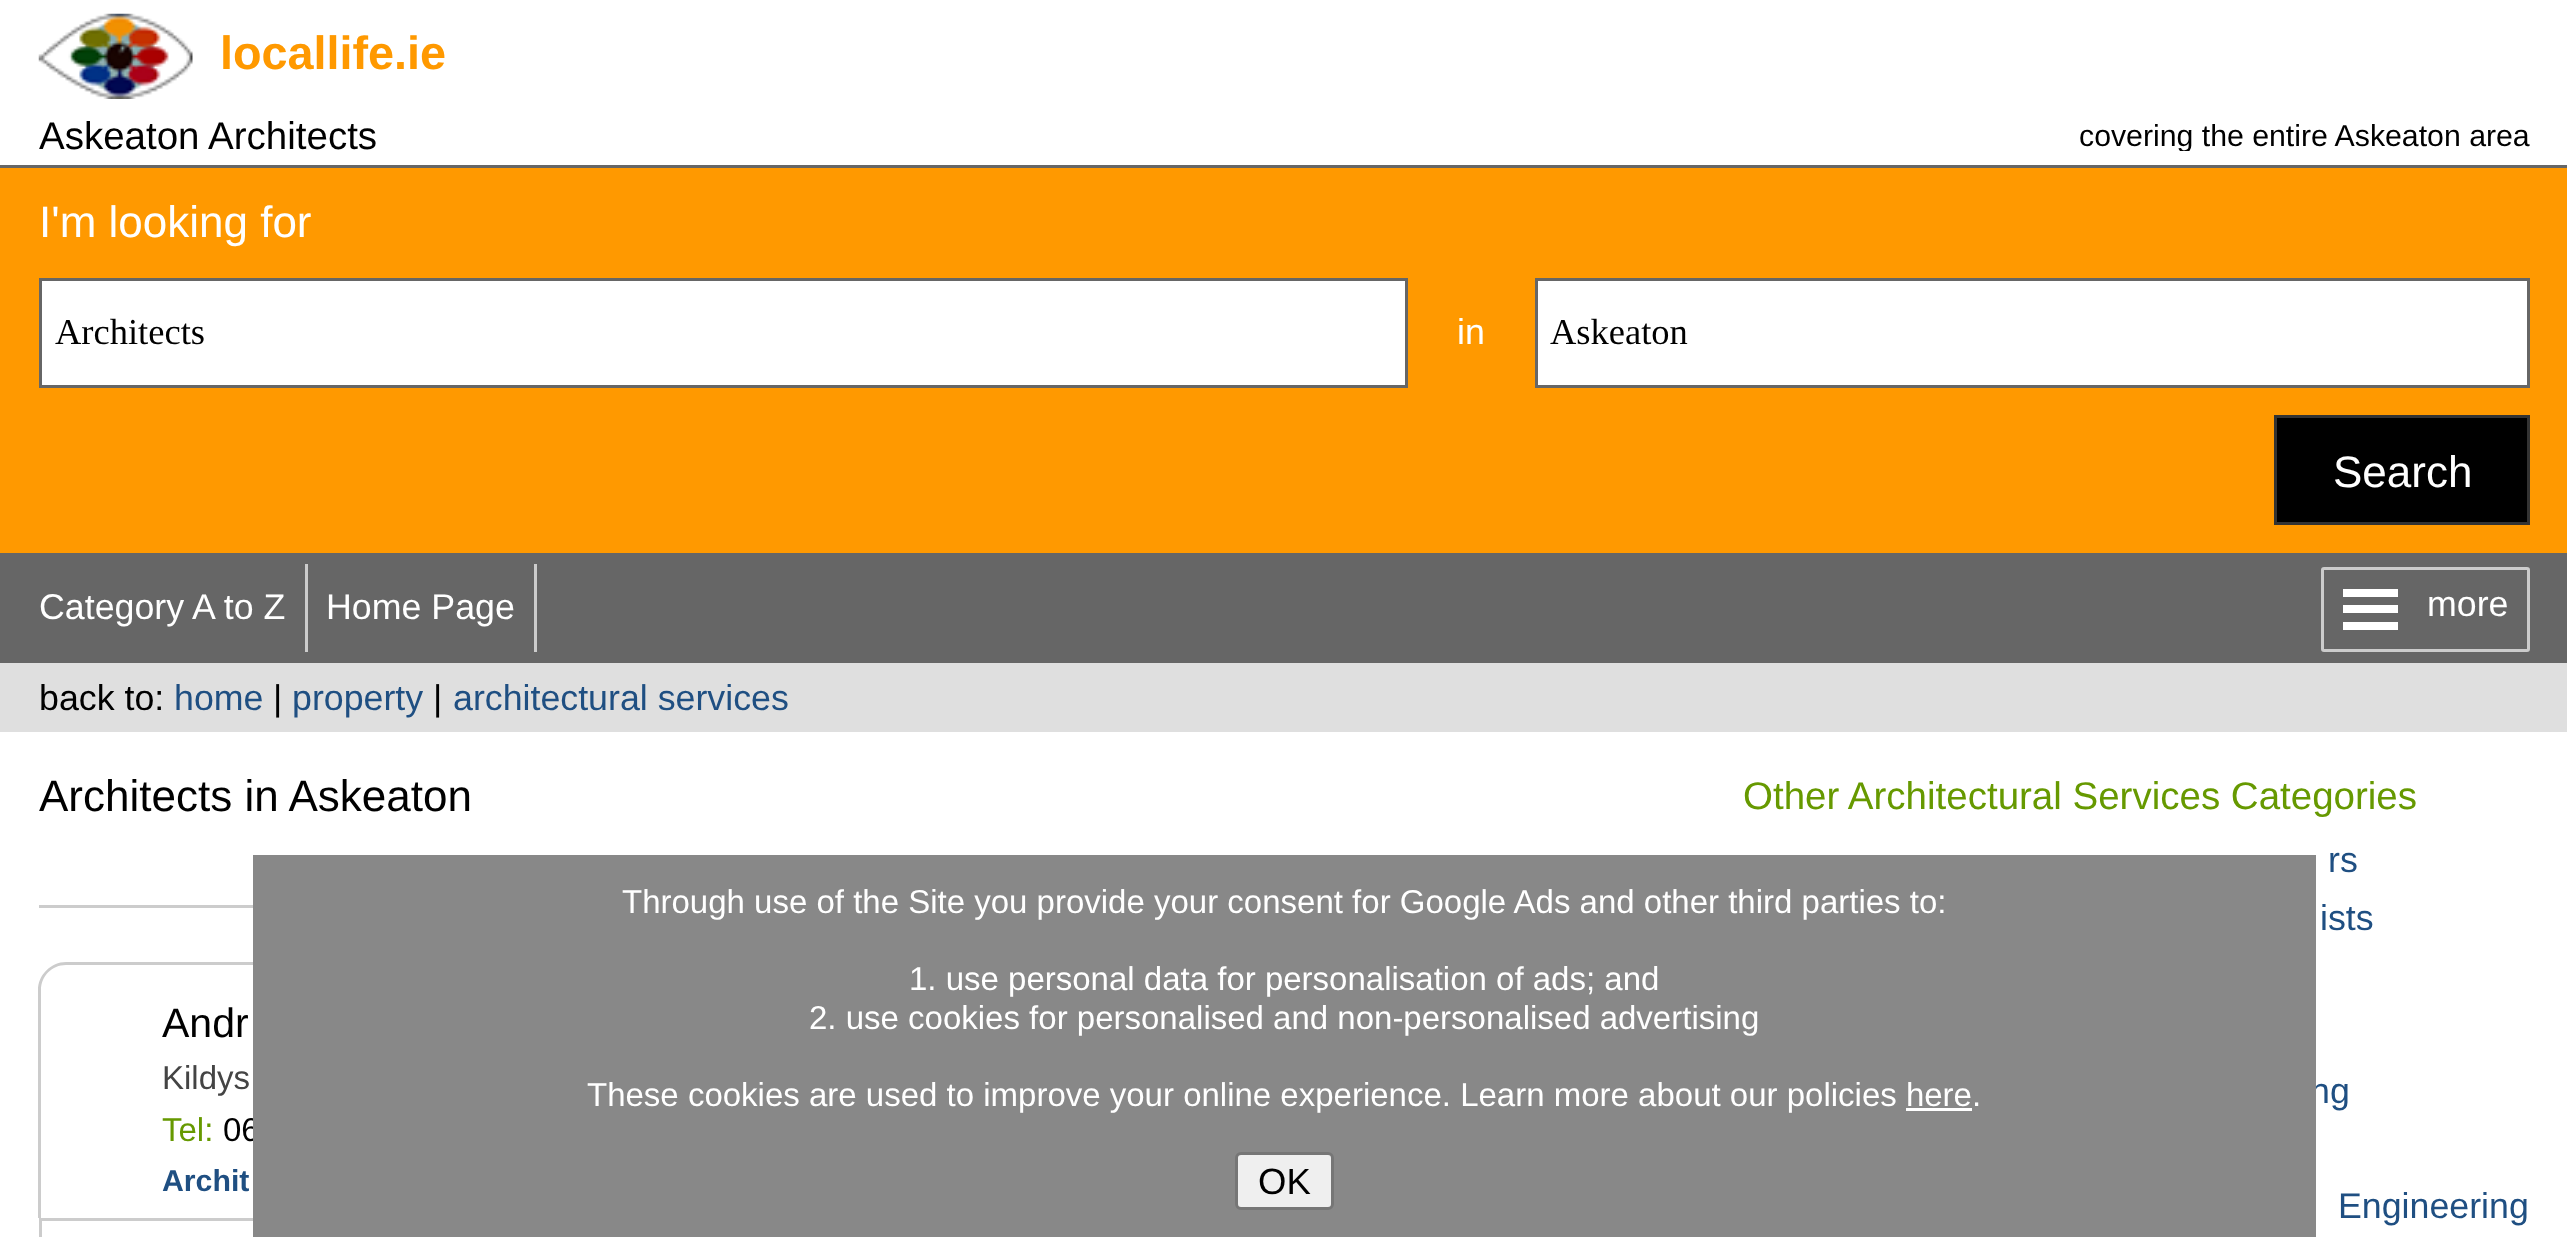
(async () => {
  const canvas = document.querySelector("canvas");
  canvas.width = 2567;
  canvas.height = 1237;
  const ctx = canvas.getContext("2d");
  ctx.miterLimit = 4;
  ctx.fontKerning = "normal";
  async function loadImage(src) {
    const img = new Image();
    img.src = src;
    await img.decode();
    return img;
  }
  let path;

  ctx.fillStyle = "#ffffff";
  ctx.fillRect(0, 0, 2567, 1237);
  ctx.drawImage(await loadImage("img/1.png"), 38, 13, 155, 86);
  ctx.fillStyle = "#ff9900";
  ctx.fillRect(0, 168, 2567, 385);
  ctx.fillStyle = "#666666";
  ctx.fillRect(0, 165, 2567, 3);
  ctx.fillStyle = "#ffffff";
  ctx.beginPath();
  ctx.rect(40.5, 279.5, 1366, 107);
  ctx.fill();
  ctx.strokeStyle = "#666666";
  ctx.lineWidth = 3;
  ctx.stroke();
  ctx.beginPath();
  ctx.rect(1536.5, 279.5, 992, 107);
  ctx.fill();
  ctx.stroke();
  ctx.fillStyle = "#000000";
  ctx.beginPath();
  ctx.rect(2275.5, 416.5, 253, 107);
  ctx.fill();
  ctx.strokeStyle = "#333333";
  ctx.stroke();
  for (const [x, y, w, h, color] of [
    [0, 553, 2567, 110, "#666666"],
    [305, 564, 3, 88, "#cccccc"],
    [534, 564, 3, 88, "#cccccc"],
  ]) {
    ctx.fillStyle = color;
    ctx.fillRect(x, y, w, h);
  }
  ctx.beginPath();
  ctx.roundRect(2322.5, 568.5, 206, 82, 1.5);
  ctx.strokeStyle = "#cccccc";
  ctx.stroke();
  for (const [x, y, w, h, color] of [
    [2343, 589, 55, 8, "#ffffff"],
    [2343, 605, 55, 8, "#ffffff"],
    [2343, 622, 55, 8, "#ffffff"],
    [0, 663, 2567, 69, "#dfdfdf"],
    [39, 905, 214, 3, "#cccccc"],
  ]) {
    ctx.fillStyle = color;
    ctx.fillRect(x, y, w, h);
  }
  path = new Path2D("M66 962H1625C1640 962 1653 975 1653 990V1218H38V990C38 975 51 962 66 962ZM66 965H1625C1639 965 1650 976 1650 990V1218H41V990C41 976 52 965 66 965Z");
  ctx.fill(path, "evenodd");
  ctx.strokeRect(40.5, 1219.5, 1611, 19);
  ctx.font = "bold 46.75px Liberation Sans";
  ctx.fillStyle = "#ff9900";
  ctx.fillText("locallife.ie", 220, 69);
  ctx.font = "38.5px Liberation Sans";
  ctx.fillStyle = "#000000";
  ctx.fillText("Askeaton Architects", 39, 149);
  ctx.save();
  ctx.beginPath();
  ctx.rect(542, 113, 1988, 38);
  ctx.clip();
  ctx.font = "30.25px Liberation Sans";
  ctx.fillText("covering the entire Askeaton area", 2079, 146);
  ctx.restore();
  ctx.font = "44px Liberation Sans";
  ctx.fillStyle = "#ffffff";
  ctx.fillText("I'm looking for", 39, 237);
  ctx.font = "36.5px Liberation Serif";
  ctx.fillStyle = "#000000";
  ctx.fillText("Architects", 55, 344);
  ctx.font = "35.75px Liberation Sans";
  ctx.fillStyle = "#ffffff";
  ctx.fillText("in", 1457, 344);
  ctx.font = "36.5px Liberation Serif";
  ctx.fillStyle = "#000000";
  ctx.fillText("Askeaton", 1550, 344);
  ctx.font = "44px Liberation Sans";
  ctx.fillStyle = "#ffffff";
  ctx.fillText("Search", 2333, 487);
  ctx.font = "35.75px Liberation Sans";
  for (const [text, x, y] of [
    ["Category A to Z", 39, 619],
    ["Home Page", 326, 619],
    ["more", 2427, 616],
  ]) {
    ctx.fillText(text, x, y);
  }
  ctx.fillStyle = "#000000";
  ctx.fillText("back to:", 39, 710);
  ctx.fillStyle = "#1f4f82";
  ctx.fillText("home", 174, 710);
  ctx.fillStyle = "#000000";
  ctx.fillText("|", 273, 710);
  ctx.fillStyle = "#1f4f82";
  ctx.fillText("property", 292, 710);
  ctx.fillStyle = "#000000";
  ctx.fillText("|", 433, 710);
  ctx.fillStyle = "#1f4f82";
  ctx.fillText("architectural services", 453, 710);
  ctx.font = "44px Liberation Sans";
  ctx.fillStyle = "#000000";
  ctx.fillText("Architects in Askeaton", 39, 811);
  ctx.font = "41px Liberation Sans";
  ctx.fillText("Andr", 162, 1037);
  ctx.font = "33px Liberation Sans";
  ctx.fillStyle = "#444444";
  ctx.fillText("Kildys", 162, 1089);
  ctx.fillStyle = "#669900";
  ctx.fillText("Tel:", 162, 1141);
  ctx.fillStyle = "#000000";
  ctx.fillText("06", 223, 1141);
  ctx.font = "bold 30.25px Liberation Sans";
  ctx.fillStyle = "#1f4f82";
  ctx.fillText("Archit", 162, 1191);
  ctx.font = "38.5px Liberation Sans";
  ctx.fillStyle = "#669900";
  ctx.fillText("Other Architectural Services Categories", 1743, 809);
  ctx.font = "35.75px Liberation Sans";
  ctx.fillStyle = "#1f4f82";
  for (const [text, x, y] of [
    ["rs", 2328, 872],
    ["ists", 2320, 930],
    ["ng", 2310, 1103],
    ["Engineering", 2338, 1218],
  ]) {
    ctx.fillText(text, x, y);
  }
  ctx.fillStyle = "#888888";
  ctx.fillRect(253, 855, 2063, 382);
  ctx.font = "33px Liberation Sans";
  ctx.fillStyle = "#ffffff";
  for (const [text, x, y] of [
    ["Through use of the Site you provide your consent for Google Ads and other third parties to:", 622, 913],
    ["1. use personal data for personalisation of ads; and", 909, 990],
    ["2. use cookies for personalised and non-personalised advertising", 809, 1029],
    ["These cookies are used to improve your online experience. Learn more about our policies here.", 587, 1106],
  ]) {
    ctx.fillText(text, x, y);
  }
  ctx.fillRect(1906, 1108, 66, 3);
  ctx.fillStyle = "#efefef";
  ctx.beginPath();
  ctx.roundRect(1236.5, 1153.5, 96, 55, 4.5);
  ctx.fill();
  ctx.strokeStyle = "#767676";
  ctx.stroke();
  ctx.font = "36.5px Liberation Sans";
  ctx.fillStyle = "#000000";
  ctx.fillText("OK", 1258, 1194);
})();
